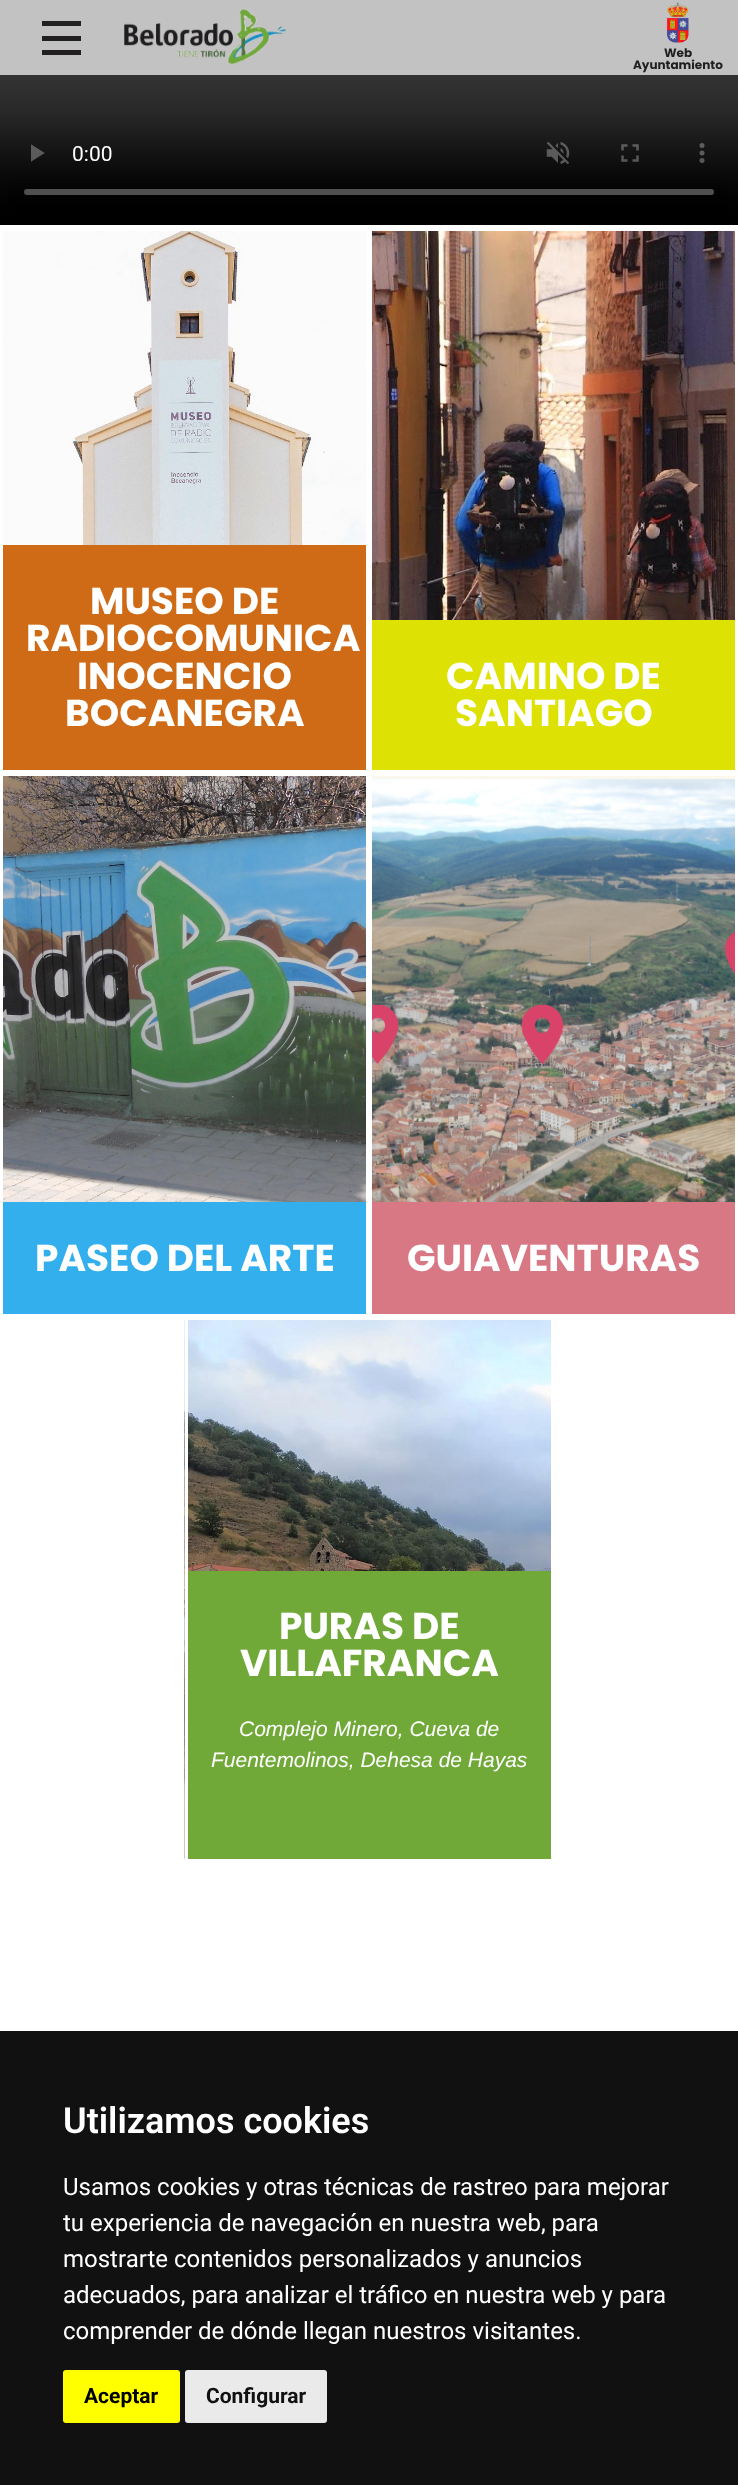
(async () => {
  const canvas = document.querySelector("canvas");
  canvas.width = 738;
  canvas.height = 2485;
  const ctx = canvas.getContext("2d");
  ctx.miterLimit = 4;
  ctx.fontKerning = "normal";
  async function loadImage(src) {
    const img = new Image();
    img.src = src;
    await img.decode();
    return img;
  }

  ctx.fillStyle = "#ffffff";
  ctx.fillRect(0, 0, 738, 2485);
  ctx.fillStyle = "#c2c2c2";
  ctx.fillRect(0, 0, 738, 75);
  ctx.drawImage(await loadImage("img/1.png"), 124, 8, 162, 57);
  for (const [x, y, w, h, color] of [
    [42, 21, 39, 5, "#211f20"],
    [42, 50, 39, 5, "#211f20"],
    [42, 36, 39, 5, "#211f20"],
  ]) {
    ctx.fillStyle = color;
    ctx.fillRect(x, y, w, h);
  }
  ctx.drawImage(await loadImage("img/2.png"), 666, 2, 23, 41);
  ctx.drawImage(await loadImage("img/3.png"), 0, 75, 738, 150);
  ctx.drawImage(await loadImage("img/4.png"), 3, 231, 363, 314);
  ctx.fillStyle = "#cf6b16";
  ctx.fillRect(3, 545, 363, 225);
  ctx.drawImage(await loadImage("img/5.png"), 372, 231, 363, 389);
  ctx.fillStyle = "#dee104";
  ctx.fillRect(372, 620, 363, 150);
  ctx.drawImage(await loadImage("img/6.png"), 3, 776, 363, 426);
  ctx.fillStyle = "#32afec";
  ctx.fillRect(3, 1202, 363, 112);
  ctx.drawImage(await loadImage("img/7.png"), 372, 776, 363, 426);
  ctx.fillStyle = "#d87884";
  ctx.fillRect(372, 1202, 363, 112);
  ctx.drawImage(await loadImage("img/8.png"), 184, 1320, 367, 539);
  ctx.strokeStyle = "#ffffff";
  ctx.lineWidth = 3;
  ctx.strokeRect(186.5, 1318.5, 366, 542);
  ctx.fillStyle = "#71a939";
  ctx.fillRect(188, 1571, 363, 288);
  ctx.fillStyle = "#111111";
  ctx.fillRect(0, 2031, 738, 454);
  ctx.fillStyle = "#ffff00";
  ctx.beginPath();
  ctx.roundRect(63, 2370, 117, 53, 3);
  ctx.fill();
  ctx.fillStyle = "#eaeaea";
  ctx.beginPath();
  ctx.roundRect(185, 2370, 142, 53, 3);
  ctx.fill();
  ctx.font = "bold 12px Poppins";
  ctx.fillStyle = "#211f20";
  ctx.fillText("Web", 664, 57);
  ctx.fillText("Ayuntamiento", 633, 69);
  ctx.font = "bold 37.5px Poppins";
  ctx.fillStyle = "#ffffff";
  for (const [text, x, y] of [
    ["MUSEO DE", 90, 614],
    ["RADIOCOMUNICA", 26, 651],
    ["INOCENCIO", 77, 689],
    ["BOCANEGRA", 65, 726],
    ["CAMINO DE", 446, 689],
    ["SANTIAGO", 455, 726],
    ["PASEO DEL ARTE", 35, 1271],
    ["GUIAVENTURAS", 407, 1271],
    ["PURAS DE", 279, 1639],
    ["VILLAFRANCA", 240, 1676],
  ]) {
    ctx.fillText(text, x, y);
  }
  ctx.font = "italic 21px Liberation Sans";
  ctx.fillText("Complejo Minero, Cueva de", 239, 1736);
  ctx.fillText("Fuentemolinos, Dehesa de Hayas", 211, 1767);
  ctx.font = "600 36px Roboto";
  ctx.fillText("Utilizamos cookies", 63, 2133);
  ctx.font = "24px Roboto";
  for (const [text, x, y] of [
    ["Usamos cookies y otras técnicas de rastreo para mejorar", 63, 2195],
    ["tu experiencia de navegación en nuestra web, para", 63, 2231],
    ["mostrarte contenidos personalizados y anuncios", 63, 2267],
    ["adecuados, para analizar el tráfico en nuestra web y para", 63, 2303],
    ["comprender de dónde llegan nuestros visitantes.", 63, 2339],
  ]) {
    ctx.fillText(text, x, y);
  }
  ctx.font = "bold 21px Roboto";
  ctx.fillStyle = "#000000";
  ctx.fillText("Aceptar", 84, 2403);
  ctx.fillStyle = "#111111";
  ctx.fillText("Configurar", 206, 2403);
})();
